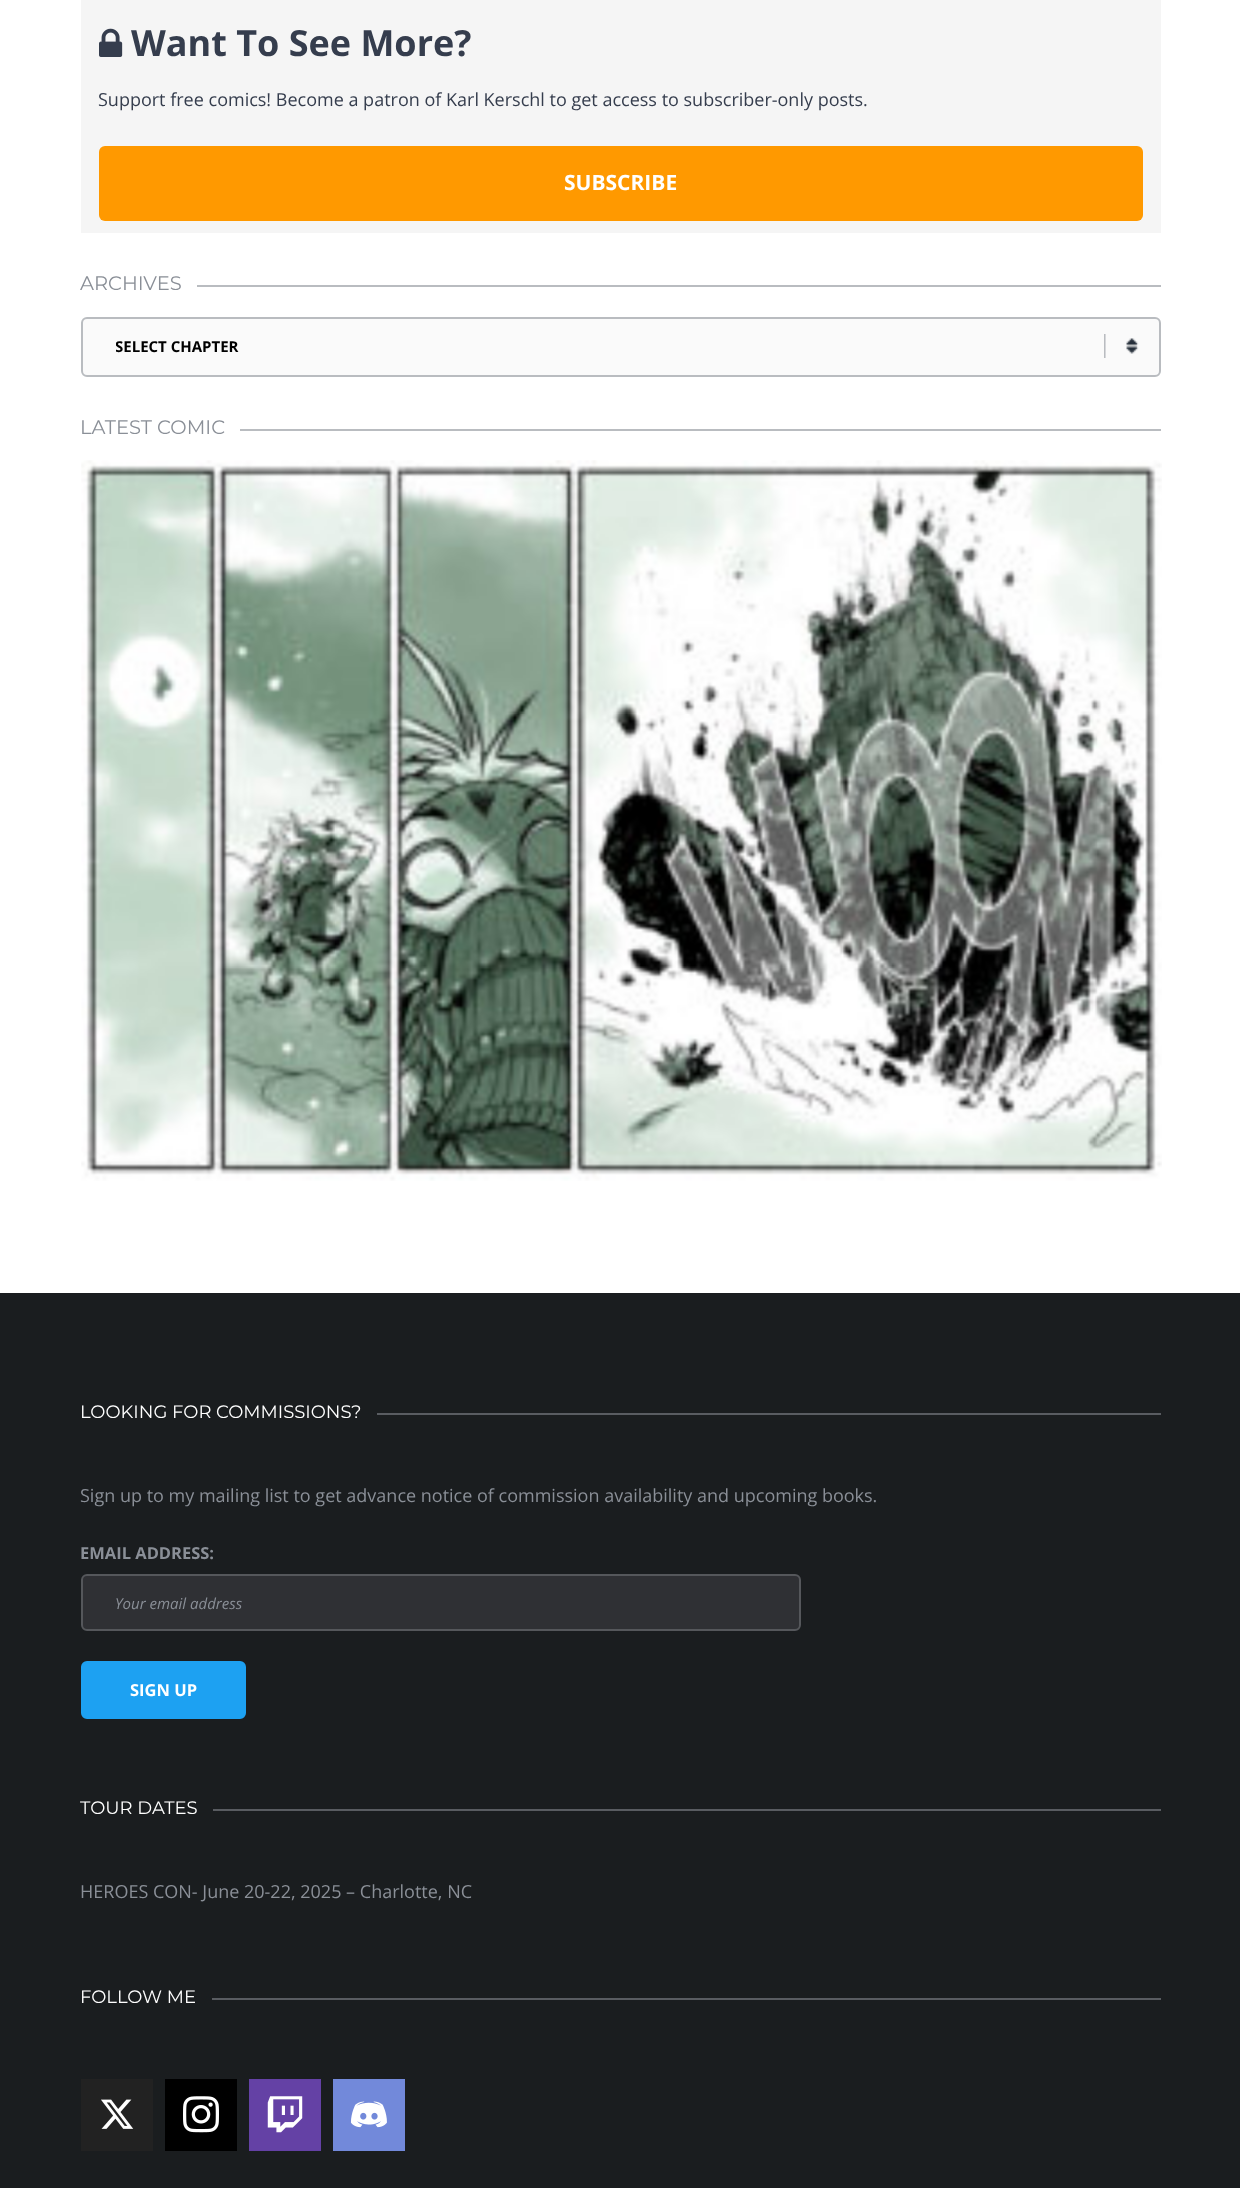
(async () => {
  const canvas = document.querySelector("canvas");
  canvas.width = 1240;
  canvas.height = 2188;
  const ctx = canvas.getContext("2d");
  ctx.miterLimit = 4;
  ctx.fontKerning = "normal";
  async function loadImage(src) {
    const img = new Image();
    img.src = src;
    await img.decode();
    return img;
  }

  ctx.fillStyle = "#ffffff";
  ctx.fillRect(0, 0, 1240, 2188);
  ctx.fillStyle = "#f5f5f5";
  ctx.fillRect(81, 0, 1080, 233);
  ctx.drawImage(await loadImage("img/1.png"), 99, 28, 24, 29);
  ctx.fillStyle = "#ff9900";
  ctx.beginPath();
  ctx.roundRect(99, 146, 1044, 75, 6);
  ctx.fill();
  ctx.fillStyle = "#b9bcc0";
  ctx.fillRect(197, 285, 964, 2);
  ctx.fillStyle = "#fafafa";
  ctx.beginPath();
  ctx.roundRect(81, 317, 1080, 60, 6);
  ctx.fill();
  ctx.drawImage(await loadImage("img/2.png"), 1104, 334, 35, 24);
  ctx.beginPath();
  ctx.roundRect(82, 318, 1078, 58, 5);
  ctx.strokeStyle = "#b9bcc0";
  ctx.lineWidth = 2;
  ctx.stroke();
  ctx.fillStyle = "#b9bcc0";
  ctx.fillRect(240, 429, 921, 2);
  ctx.drawImage(await loadImage("img/3.png"), 81, 460, 1081, 721);
  ctx.fillStyle = "#1a1d1f";
  ctx.fillRect(0, 1293, 1240, 895);
  ctx.fillStyle = "#595c61";
  ctx.fillRect(377, 1413, 784, 2);
  ctx.fillStyle = "#2f3034";
  ctx.beginPath();
  ctx.roundRect(82, 1575, 718, 55, 5);
  ctx.fill();
  ctx.strokeStyle = "#55575b";
  ctx.stroke();
  ctx.fillStyle = "#1da1f2";
  ctx.beginPath();
  ctx.roundRect(82, 1662, 163, 56, 5);
  ctx.fill();
  ctx.strokeStyle = "#1da1f2";
  ctx.stroke();
  for (const [x, y, w, h, color] of [
    [213, 1809, 948, 2, "#595c61"],
    [212, 1998, 949, 2, "#595c61"],
    [81, 2079, 72, 72, "#222222"],
  ]) {
    ctx.fillStyle = color;
    ctx.fillRect(x, y, w, h);
  }
  ctx.drawImage(await loadImage("img/4.png"), 101, 2099, 33, 30);
  ctx.fillStyle = "#000000";
  ctx.fillRect(165, 2079, 72, 72);
  ctx.drawImage(await loadImage("img/5.png"), 183, 2096, 36, 37);
  ctx.fillStyle = "#6441a5";
  ctx.fillRect(249, 2079, 72, 72);
  ctx.drawImage(await loadImage("img/6.png"), 267, 2096, 36, 37);
  ctx.fillStyle = "#7289da";
  ctx.fillRect(333, 2079, 72, 72);
  ctx.drawImage(await loadImage("img/7.png"), 350, 2101, 37, 27);
  ctx.font = "bold 36px Open Sans";
  ctx.fillStyle = "#353d4d";
  ctx.fillText("Want To See More?", 131, 56);
  ctx.font = "18px Open Sans";
  ctx.fillText("Support free comics! Become a patron of Karl Kerschl to get access to subscriber-only posts.", 98, 106);
  ctx.font = "bold 21px Open Sans";
  ctx.fillStyle = "#ffffff";
  ctx.fillText("SUBSCRIBE", 564, 190);
  ctx.font = "100 19.5px Montserrat";
  ctx.fillStyle = "#8a8f97";
  ctx.fillText("ARCHIVES", 80, 290);
  ctx.save();
  ctx.beginPath();
  ctx.rect(116, 332, 1032, 30);
  ctx.clip();
  ctx.font = "bold 15px Open Sans";
  ctx.fillStyle = "#000000";
  ctx.fillText("SELECT CHAPTER", 115, 352);
  ctx.restore();
  ctx.fillText("LATEST COMIC", 80, 434);
  ctx.font = "100 18px Montserrat";
  ctx.fillStyle = "#ffffff";
  ctx.fillText("LOOKING FOR COMMISSIONS?", 80, 1418);
  ctx.font = "18px Open Sans";
  ctx.fillStyle = "#8a8f97";
  ctx.fillText("Sign up to my mailing list to get advance notice of commission availability and upcoming books.", 80, 1502);
  ctx.font = "bold 16.5px Open Sans";
  ctx.fillText("EMAIL ADDRESS:", 80, 1559);
  ctx.font = "italic 15px Open Sans";
  ctx.fillText("Your email address", 115, 1609);
  ctx.font = "bold 16.5px Open Sans";
  ctx.fillStyle = "#ffffff";
  ctx.fillText("SIGN UP", 130, 1696);
  ctx.font = "100 18px Montserrat";
  ctx.fillText("TOUR DATES", 80, 1814);
  ctx.font = "18px Open Sans";
  ctx.fillStyle = "#8a8f97";
  ctx.fillText("HEROES CON- June 20-22, 2025 – Charlotte, NC", 80, 1898);
  ctx.font = "100 18px Montserrat";
  ctx.fillStyle = "#ffffff";
  ctx.fillText("FOLLOW ME", 80, 2003);
})();
